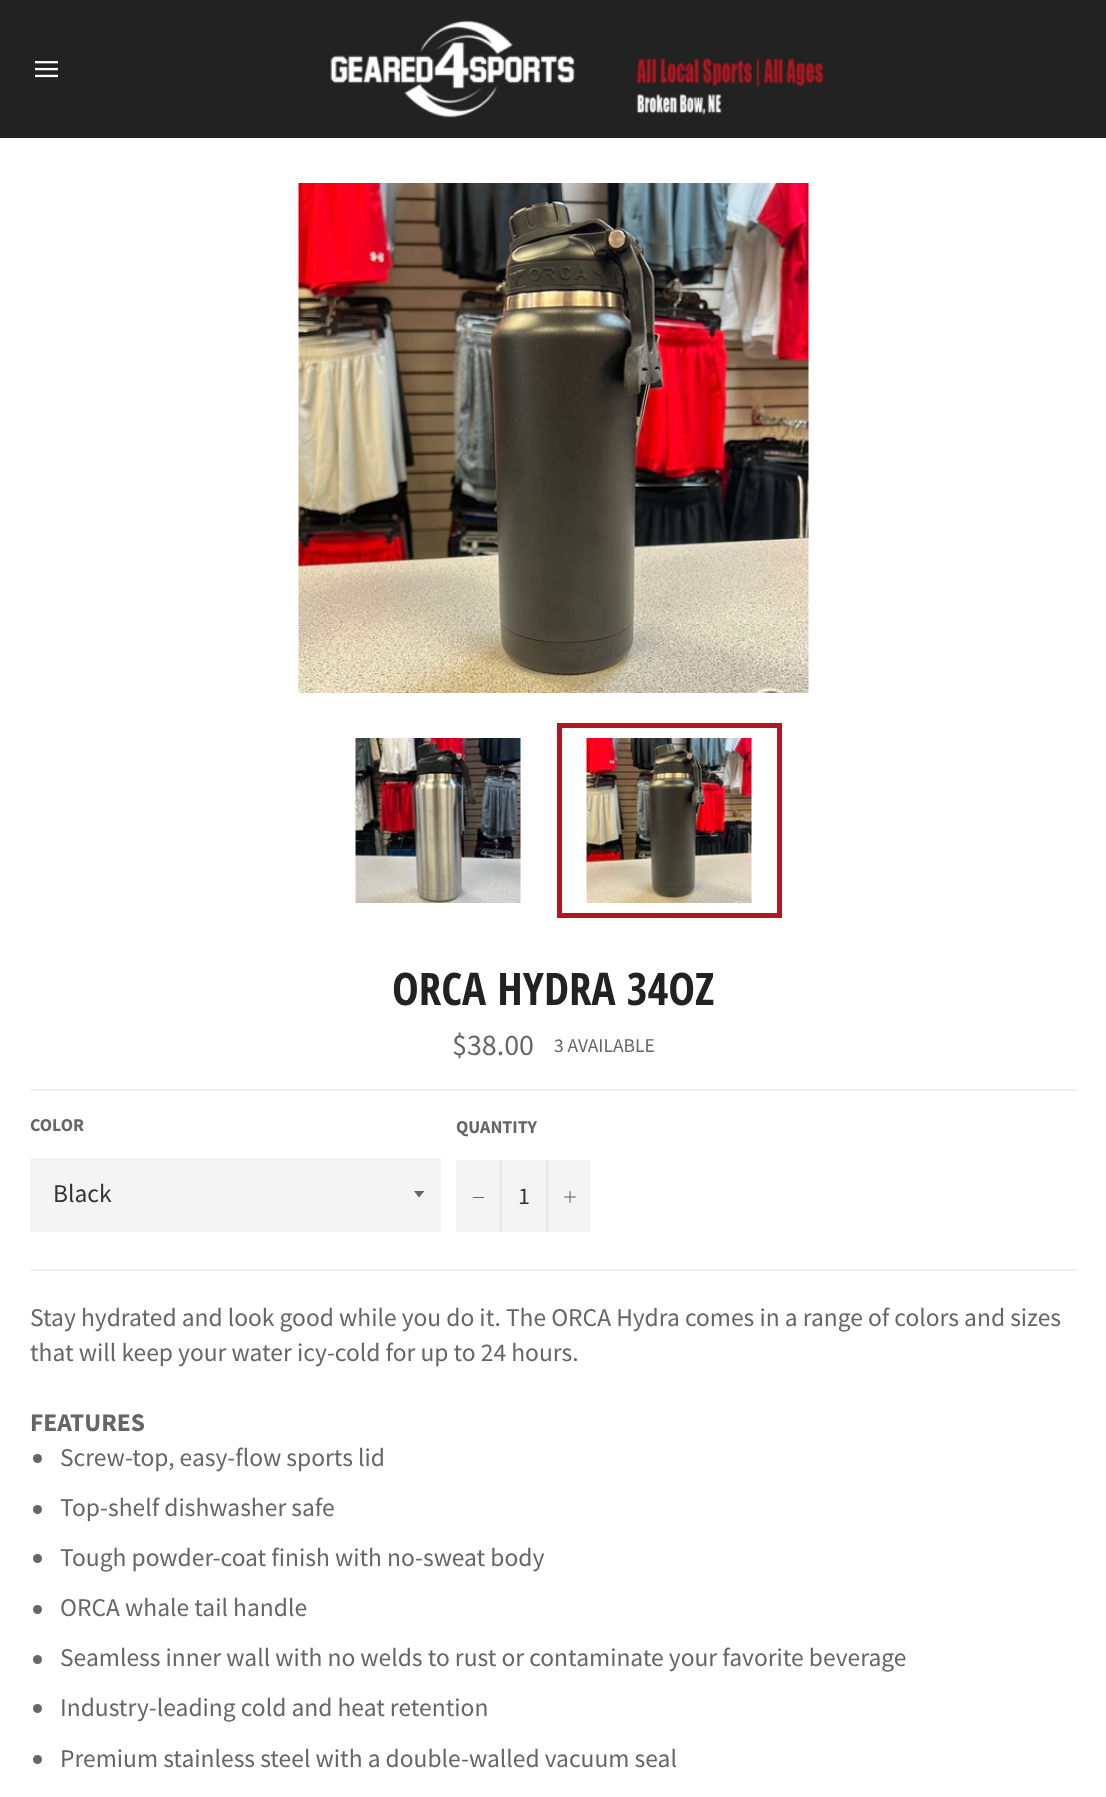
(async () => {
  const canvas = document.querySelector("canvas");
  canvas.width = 1106;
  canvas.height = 1797;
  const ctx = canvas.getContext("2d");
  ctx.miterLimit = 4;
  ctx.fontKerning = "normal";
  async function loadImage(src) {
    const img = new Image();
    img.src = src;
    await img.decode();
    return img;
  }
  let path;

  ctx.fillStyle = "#ffffff";
  ctx.fillRect(0, 0, 1106, 1797);
  ctx.fillStyle = "#222222";
  ctx.fillRect(0, 0, 1106, 138);
  ctx.drawImage(await loadImage("img/1.png"), 35, 61, 23, 17);
  ctx.drawImage(await loadImage("img/2.png"), 330, 20, 494, 98);
  ctx.drawImage(await loadImage("img/3.png"), 298, 183, 511, 510);
  ctx.drawImage(await loadImage("img/4.png"), 355, 738, 166, 165);
  ctx.drawImage(await loadImage("img/5.png"), 586, 738, 166, 165);
  ctx.strokeStyle = "#ad1822";
  ctx.lineWidth = 5;
  ctx.strokeRect(559.5, 725.5, 220, 190);
  ctx.fillStyle = "#f0f0f0";
  ctx.fillRect(30, 1089, 1047, 2);
  ctx.fillStyle = "#f4f4f4";
  ctx.fillRect(30, 1158, 411, 74);
  ctx.fillStyle = "#666666";
  path = new Path2D("M414 1191L419 1197.5L424.5 1191Z");
  ctx.fill(path);
  for (const [x, y, w, h, color] of [
    [456, 1160, 135, 72, "#f4f4f4"],
    [500, 1160, 2, 72, "#e7e7e7"],
    [473, 1197, 11, 1, "#666666"],
    [546, 1160, 2, 72, "#e7e7e7"],
  ]) {
    ctx.fillStyle = color;
    ctx.fillRect(x, y, w, h);
  }
  ctx.drawImage(await loadImage("img/6.png"), 564, 1191, 12, 12);
  ctx.fillStyle = "#f0f0f0";
  ctx.fillRect(30, 1269, 1047, 2);
  ctx.fillStyle = "#666666";
  ctx.beginPath();
  ctx.arc(37.5, 1458.5, 4.5, 0, Math.PI * 2);
  ctx.fill();
  ctx.beginPath();
  ctx.arc(37.5, 1509.5, 4.5, 0, Math.PI * 2);
  ctx.fill();
  ctx.beginPath();
  ctx.arc(37.5, 1558.5, 4.5, 0, Math.PI * 2);
  ctx.fill();
  ctx.beginPath();
  ctx.arc(37.5, 1609.5, 4.5, 0, Math.PI * 2);
  ctx.fill();
  ctx.beginPath();
  ctx.arc(37.5, 1659.5, 4.5, 0, Math.PI * 2);
  ctx.fill();
  ctx.beginPath();
  ctx.arc(37.5, 1708.5, 4.5, 0, Math.PI * 2);
  ctx.fill();
  ctx.beginPath();
  ctx.arc(37.5, 1759.5, 4.5, 0, Math.PI * 2);
  ctx.fill();
  ctx.font = "bold 45px Open Sans Condensed";
  ctx.fillStyle = "#222222";
  ctx.fillText("ORCA HYDRA 34OZ", 392, 1005);
  ctx.font = "30px Source Sans Pro";
  ctx.fillStyle = "#666666";
  ctx.fillText("$38.00", 452, 1055);
  ctx.font = "19.5px Source Sans Pro";
  ctx.fillText("3 AVAILABLE", 554, 1052);
  ctx.font = "bold 18px Source Sans Pro";
  ctx.fillText("COLOR", 30, 1131);
  ctx.font = "25.5px Source Sans Pro";
  ctx.fillStyle = "#333333";
  ctx.fillText("Black", 53, 1202);
  ctx.font = "bold 18px Source Sans Pro";
  ctx.fillStyle = "#666666";
  ctx.fillText("QUANTITY", 456, 1133);
  ctx.font = "24px Source Sans Pro";
  ctx.fillStyle = "#333333";
  ctx.fillText("1", 518, 1204);
  ctx.font = "25.5px Source Sans Pro";
  ctx.fillStyle = "#666666";
  ctx.fillText("Stay hydrated and look good while you do it. The ORCA Hydra comes in a range of colors and sizes", 30, 1326);
  ctx.fillText("that will keep your water icy-cold for up to 24 hours.", 30, 1361);
  ctx.font = "bold 25.5px Source Sans Pro";
  ctx.fillText("FEATURES", 30, 1431);
  ctx.font = "25.5px Source Sans Pro";
  for (const [text, x, y] of [
    ["Screw-top, easy-flow sports lid", 60, 1466],
    ["Top-shelf dishwasher safe", 60, 1516],
    ["Tough powder-coat finish with no-sweat body", 60, 1566],
    ["ORCA whale tail handle", 60, 1616],
    ["Seamless inner wall with no welds to rust or contaminate your favorite beverage", 60, 1666],
    ["Industry-leading cold and heat retention", 60, 1716],
    ["Premium stainless steel with a double-walled vacuum seal", 60, 1767],
  ]) {
    ctx.fillText(text, x, y);
  }
})();
